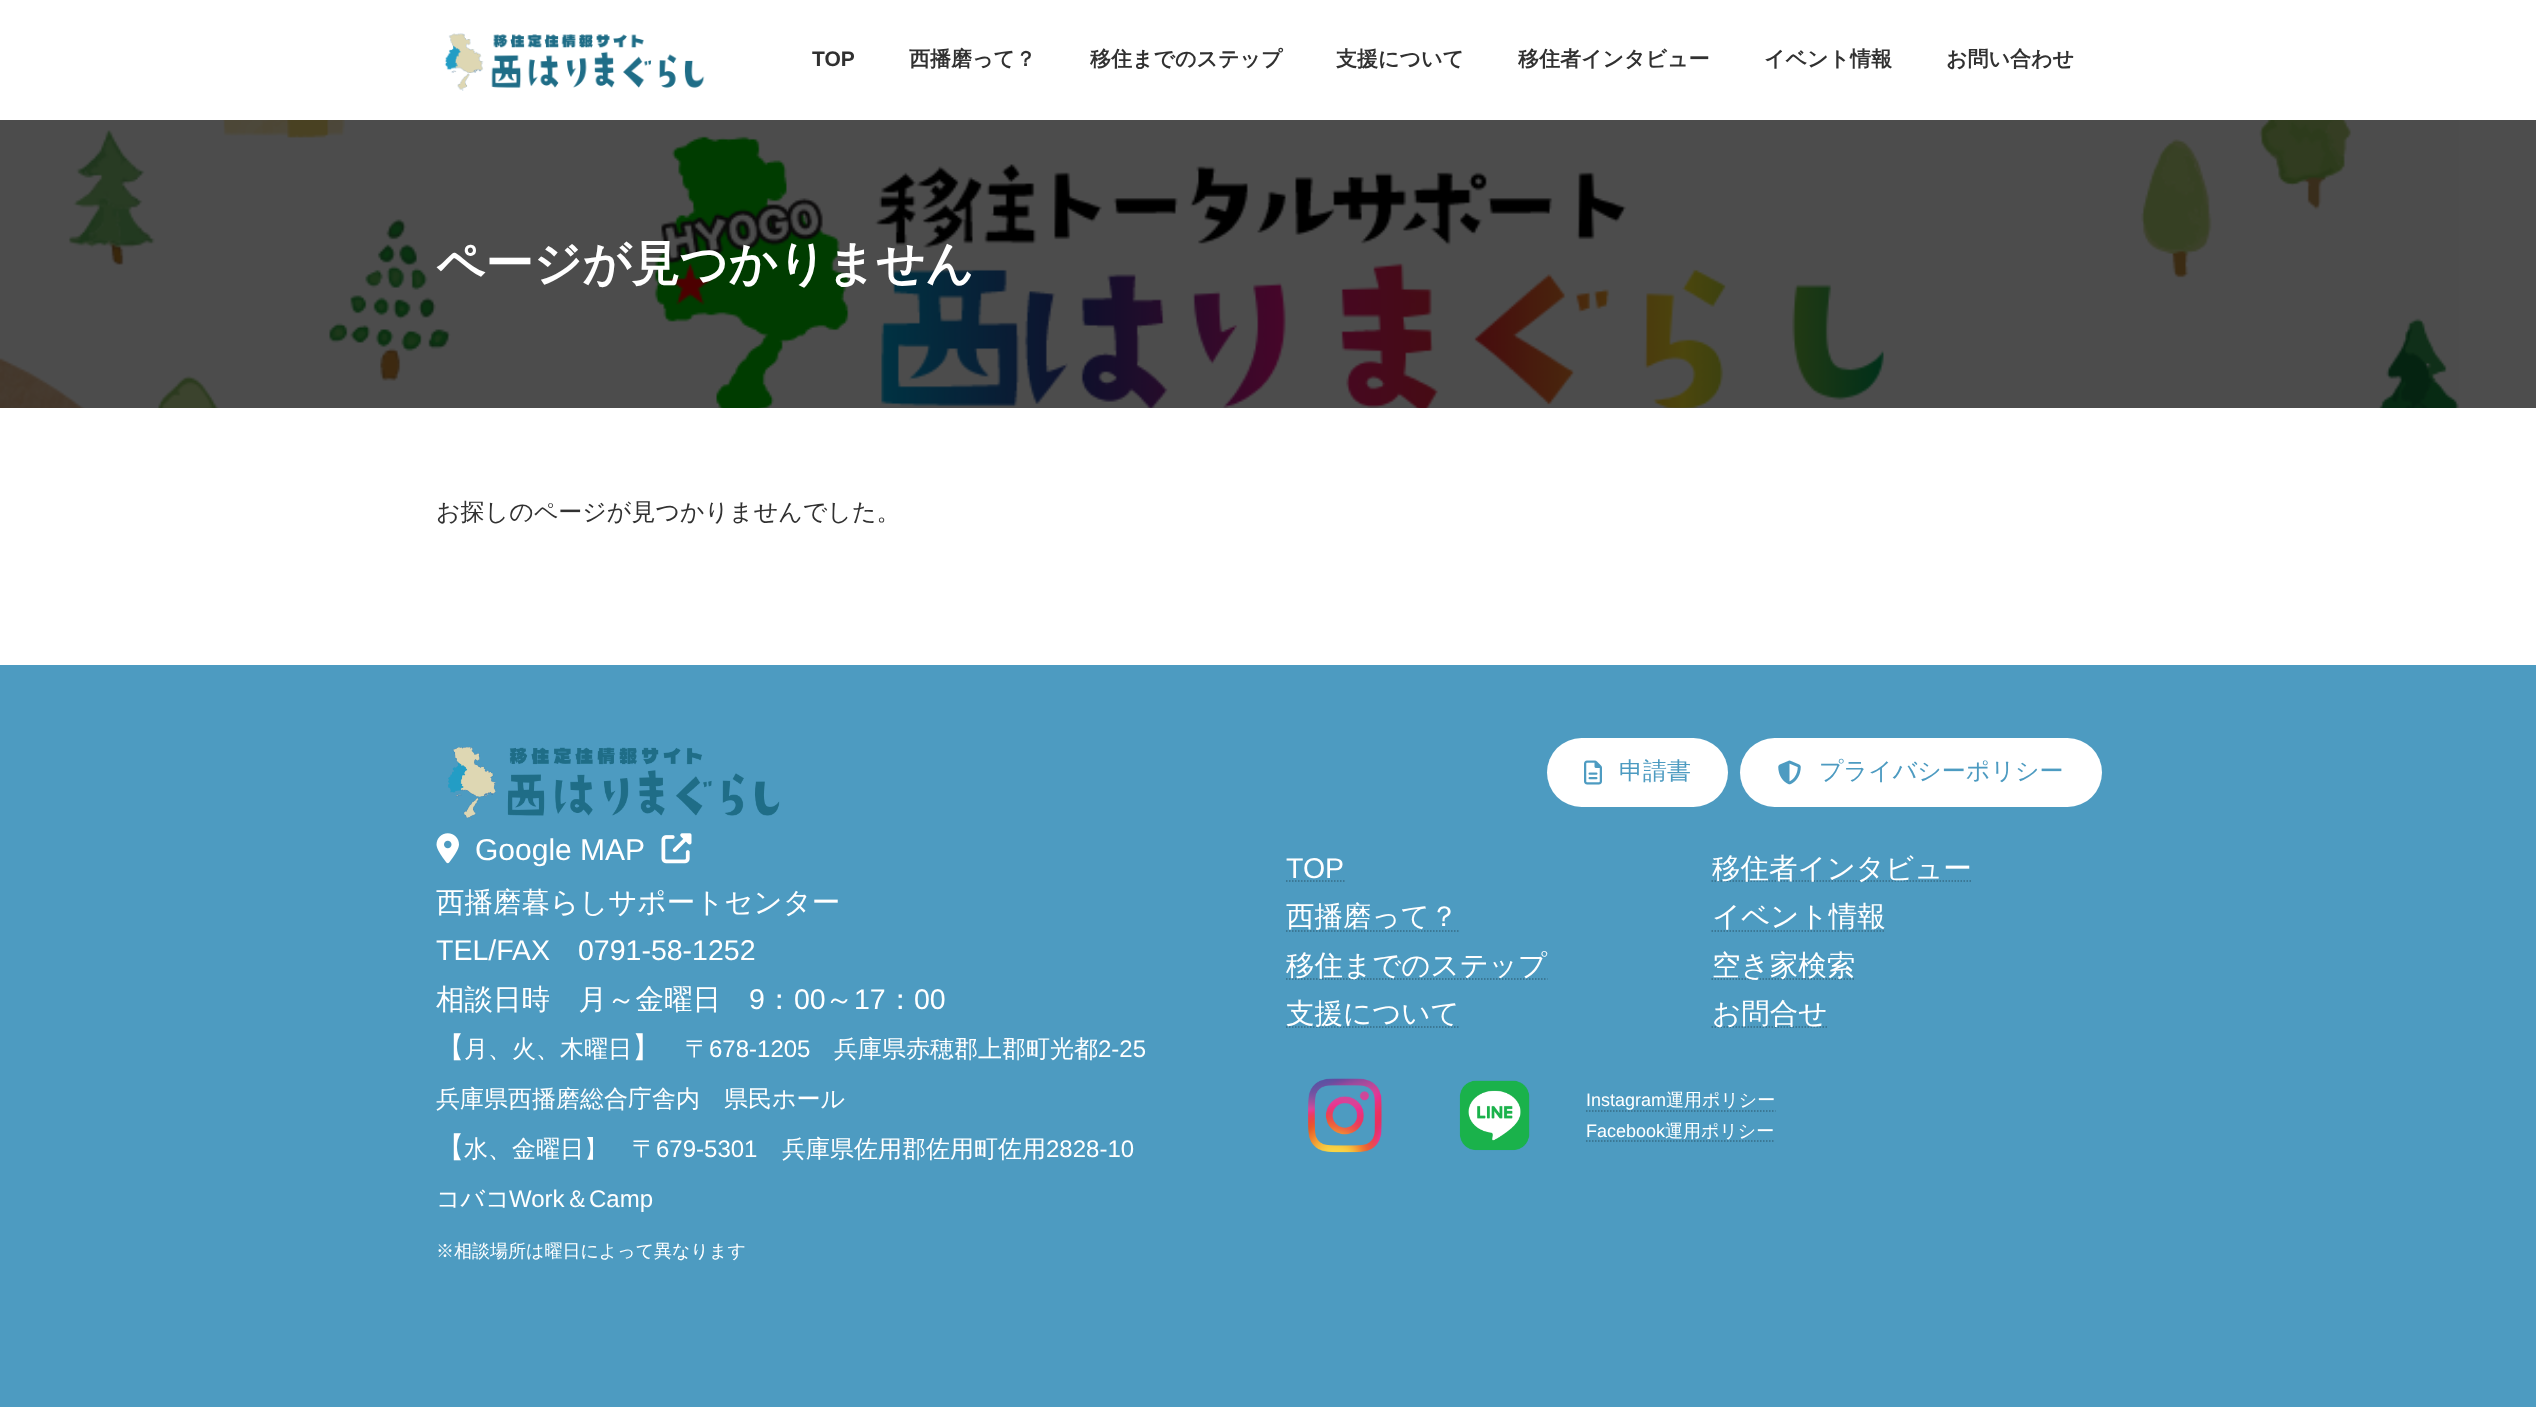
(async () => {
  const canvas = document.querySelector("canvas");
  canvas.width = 2536;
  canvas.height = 1407;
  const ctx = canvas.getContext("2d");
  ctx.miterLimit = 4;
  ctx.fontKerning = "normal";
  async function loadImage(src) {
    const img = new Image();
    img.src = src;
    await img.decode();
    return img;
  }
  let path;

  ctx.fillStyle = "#ffffff";
  ctx.fillRect(0, 0, 2536, 1407);
  ctx.fillStyle = "#4d4d4d";
  ctx.fillRect(2459, 120, 77, 288);
  ctx.drawImage(await loadImage("img/1.png"), 444, 33, 261, 58);
  ctx.drawImage(await loadImage("img/2.png"), 0, 120, 2459, 288);
  ctx.fillStyle = "#4d9bc1";
  ctx.fillRect(0, 665, 2536, 742);
  ctx.drawImage(await loadImage("img/3.png"), 448, 747, 332, 73);
  ctx.drawImage(await loadImage("img/4.png"), 436, 833, 23, 31);
  ctx.drawImage(await loadImage("img/5.png"), 661, 833, 31, 31);
  ctx.fillStyle = "#ffffff";
  ctx.beginPath();
  ctx.roundRect(1547, 738, 181, 69, 34.5);
  ctx.fill();
  ctx.drawImage(await loadImage("img/6.png"), 1584, 760, 18, 25);
  ctx.beginPath();
  ctx.roundRect(1740, 738, 362, 69, 34.5);
  ctx.fill();
  ctx.drawImage(await loadImage("img/7.png"), 1778, 760, 23, 25);
  path = new Path2D("M1286 881H1344.5");
  ctx.strokeStyle = "#366d87";
  ctx.lineWidth = 1.5;
  ctx.setLineDash([1.5, 1.5]);
  ctx.stroke(path);
  path = new Path2D("M1286 931H1458.5");
  ctx.stroke(path);
  path = new Path2D("M1286 979H1547.5");
  ctx.stroke(path);
  path = new Path2D("M1286 1027H1460");
  ctx.stroke(path);
  path = new Path2D("M1711.5 881H1971.5");
  ctx.stroke(path);
  path = new Path2D("M1711.5 931H1885");
  ctx.stroke(path);
  path = new Path2D("M1711.5 979H1854.5");
  ctx.stroke(path);
  path = new Path2D("M1711.5 1027H1827");
  ctx.stroke(path);
  ctx.drawImage(await loadImage("img/8.png"), 1308, 1078, 74, 75);
  ctx.drawImage(await loadImage("img/9.png"), 1459, 1080, 71, 71);
  path = new Path2D("M1586 1111H1775.5");
  ctx.stroke(path);
  path = new Path2D("M1586 1141H1774.5");
  ctx.stroke(path);
  ctx.font = "bold 21px Liberation Sans";
  ctx.fillStyle = "#313131";
  ctx.fillText("TOP", 812, 66);
  ctx.font = "bold 21px WenQuanYi Zen Hei";
  for (const [text, x, y] of [
    ["西播磨って？", 909, 66],
    ["移住までのステップ", 1090, 66],
    ["支援について", 1336, 66],
    ["移住者インタビュー", 1518, 66],
    ["イベント情報", 1764, 66],
    ["お問い合わせ", 1946, 66],
  ]) {
    ctx.fillText(text, x, y);
  }
  ctx.font = "bold 48px WenQuanYi Zen Hei";
  ctx.fillStyle = "#ffffff";
  ctx.fillText("ページが見つかりません", 436, 280);
  ctx.font = "500 24px WenQuanYi Zen Hei";
  ctx.fillStyle = "#313131";
  ctx.fillText("お探しのページが見つかりませんでした。", 436, 520);
  ctx.font = "30px Liberation Sans";
  ctx.fillStyle = "#ffffff";
  ctx.fillText("Google MAP", 475, 860);
  ctx.font = "500 28.5px WenQuanYi Zen Hei";
  ctx.fillText("西播磨暮らしサポートセンター", 436, 912);
  ctx.font = "28.5px Liberation Sans";
  ctx.fillText("TEL/FAX", 436, 960);
  ctx.fillText("0791-58-1252", 578, 960);
  ctx.font = "500 28.5px WenQuanYi Zen Hei";
  ctx.fillText("相談日時　月～金曜日", 436, 1009);
  ctx.font = "28.5px Liberation Sans";
  ctx.fillText("9", 749, 1009);
  ctx.font = "500 28.5px WenQuanYi Zen Hei";
  ctx.fillText("：", 765, 1009);
  ctx.font = "28.5px Liberation Sans";
  ctx.fillText("00", 794, 1009);
  ctx.font = "500 28.5px WenQuanYi Zen Hei";
  ctx.fillText("～", 825, 1009);
  ctx.font = "28.5px Liberation Sans";
  ctx.fillText("17", 854, 1009);
  ctx.font = "500 28.5px WenQuanYi Zen Hei";
  ctx.fillText("：", 886, 1009);
  ctx.font = "28.5px Liberation Sans";
  ctx.fillText("00", 914, 1009);
  ctx.font = "500 28.5px WenQuanYi Zen Hei";
  ctx.fillText("【", 436, 1057);
  ctx.font = "500 24px WenQuanYi Zen Hei";
  ctx.fillText("月、火、木曜日", 464, 1057);
  ctx.font = "500 28.5px WenQuanYi Zen Hei";
  ctx.fillText("】", 632, 1057);
  ctx.font = "500 24px WenQuanYi Zen Hei";
  ctx.fillText("〒", 685, 1057);
  ctx.font = "24px Liberation Sans";
  ctx.fillText("678-1205", 709, 1057);
  ctx.font = "500 24px WenQuanYi Zen Hei";
  ctx.fillText("兵庫県赤穂郡上郡町光都", 834, 1057);
  ctx.font = "24px Liberation Sans";
  ctx.fillText("2-25", 1098, 1057);
  ctx.font = "500 24px WenQuanYi Zen Hei";
  ctx.fillText("兵庫県西播磨総合庁舎内　県民ホール", 436, 1107);
  ctx.font = "500 28.5px WenQuanYi Zen Hei";
  ctx.fillText("【", 436, 1157);
  ctx.font = "500 24px WenQuanYi Zen Hei";
  ctx.fillText("水、金曜日】　〒", 464, 1157);
  ctx.font = "24px Liberation Sans";
  ctx.fillText("679-5301", 656, 1157);
  ctx.font = "500 24px WenQuanYi Zen Hei";
  ctx.fillText("兵庫県佐用郡佐用町佐用", 782, 1157);
  ctx.font = "24px Liberation Sans";
  ctx.fillText("2828-10", 1046, 1157);
  ctx.font = "500 24px WenQuanYi Zen Hei";
  ctx.fillText("コバコ", 436, 1207);
  ctx.font = "24px Liberation Sans";
  ctx.fillText("Work", 509, 1207);
  ctx.font = "500 24px WenQuanYi Zen Hei";
  ctx.fillText("＆", 565, 1207);
  ctx.font = "24px Liberation Sans";
  ctx.fillText("Camp", 589, 1207);
  ctx.font = "500 18px WenQuanYi Zen Hei";
  ctx.fillText("※相談場所は曜日によって異なります", 436, 1257);
  ctx.font = "500 24px WenQuanYi Zen Hei";
  ctx.fillStyle = "#4d9bc1";
  ctx.fillText("申請書", 1619, 779);
  ctx.fillText("プライバシーポリシー", 1819, 779);
  ctx.font = "28.5px Liberation Sans";
  ctx.fillStyle = "#ffffff";
  ctx.fillText("TOP", 1286, 878);
  ctx.font = "500 28.5px WenQuanYi Zen Hei";
  for (const [text, x, y] of [
    ["西播磨って？", 1286, 926],
    ["移住までのステップ", 1286, 975],
    ["支援について", 1286, 1023],
    ["移住者インタビュー", 1712, 878],
    ["イベント情報", 1712, 926],
    ["空き家検索", 1712, 975],
    ["お問合せ", 1712, 1023],
  ]) {
    ctx.fillText(text, x, y);
  }
  ctx.font = "18px Liberation Sans";
  ctx.fillText("Instagram", 1586, 1106);
  ctx.font = "500 18px WenQuanYi Zen Hei";
  ctx.fillText("運用ポリシー", 1666, 1106);
  ctx.font = "18px Liberation Sans";
  ctx.fillText("Facebook", 1586, 1137);
  ctx.font = "500 18px WenQuanYi Zen Hei";
  ctx.fillText("運用ポリシー", 1665, 1137);
})();
